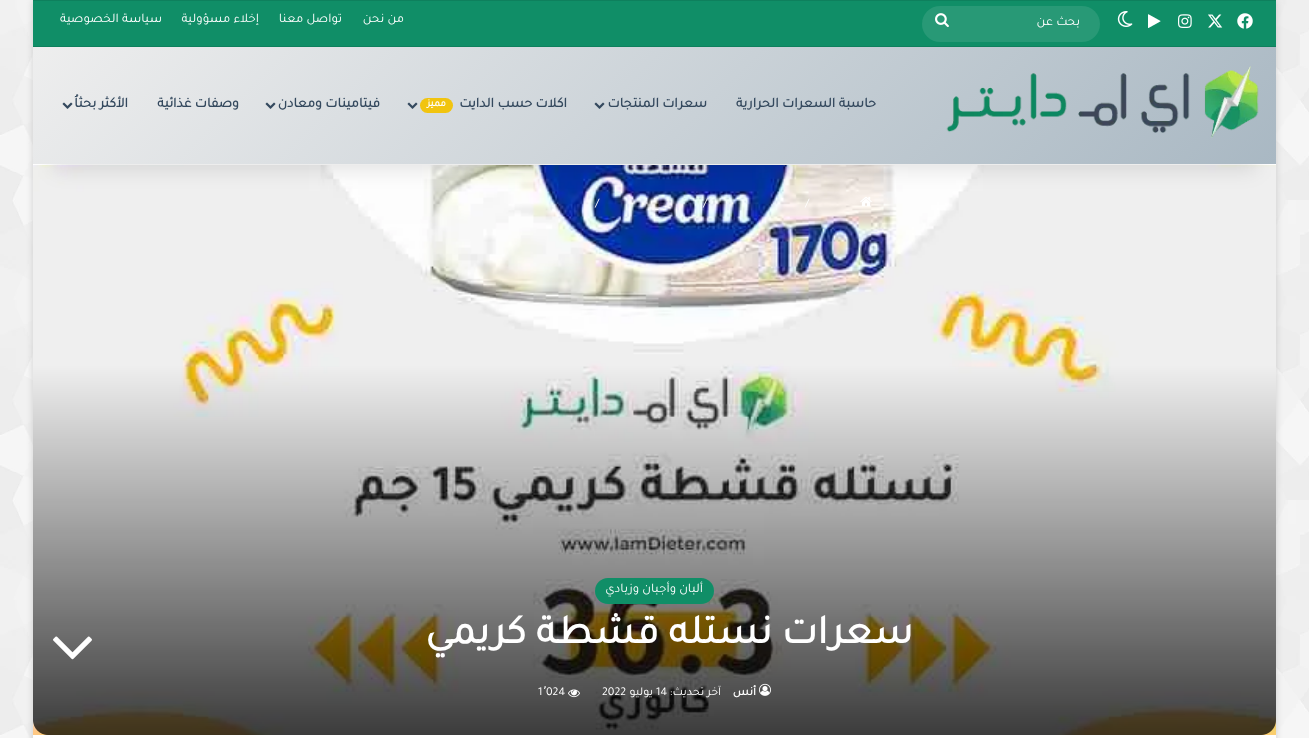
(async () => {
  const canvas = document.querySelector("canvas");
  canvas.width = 1309;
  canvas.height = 738;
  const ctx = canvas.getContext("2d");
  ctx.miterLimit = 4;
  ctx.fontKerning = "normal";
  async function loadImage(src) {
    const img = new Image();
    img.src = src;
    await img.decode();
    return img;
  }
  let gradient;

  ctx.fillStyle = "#f7f7f7";
  ctx.fillRect(0, 0, 1309, 738);
  ctx.drawImage(await loadImage("img/1.png"), 0, 0, 1309, 738);
  ctx.fillStyle = "rgba(171, 171, 171, 0.5)";
  ctx.filter = "blur(3.5px)";
  ctx.beginPath();
  ctx.rect(33, 1, 1243, 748);
  ctx.fill();
  ctx.filter = "none";
  ctx.fillStyle = "#ffffff";
  ctx.fillRect(33, 164, 1243, 574);
  ctx.drawImage(await loadImage("img/13.png"), 33, 165, 1243, 570);
  ctx.drawImage(await loadImage("img/14.png"), 860, 196, 12, 10);
  ctx.fillStyle = "rgba(0, 0, 0, 0.1)";
  ctx.filter = "blur(10px)";
  ctx.beginPath();
  ctx.rect(53, 45, 1203, 125);
  ctx.fill();
  ctx.filter = "none";
  for (const [x, y, w, h, color] of [
    [33, 1, 1243, 45, "#108e67"],
    [33, 0, 1243, 1, "#0e805d"],
    [33, 46, 1243, 1, "#0e805d"],
  ]) {
    ctx.fillStyle = color;
    ctx.fillRect(x, y, w, h);
  }
  ctx.drawImage(await loadImage("img/2.png"), 1237, 13, 16, 16);
  ctx.drawImage(await loadImage("img/3.png"), 1208, 14, 15, 14);
  ctx.drawImage(await loadImage("img/4.png"), 1178, 14, 14, 14);
  ctx.drawImage(await loadImage("img/5.png"), 1148, 14, 13, 14);
  ctx.drawImage(await loadImage("img/6.png"), 1117, 11, 16, 16);
  ctx.fillStyle = "#289976";
  ctx.beginPath();
  ctx.roundRect(922, 6, 178, 36, 18);
  ctx.fill();
  ctx.drawImage(await loadImage("img/7.png"), 935, 13, 14, 15);
  gradient = ctx.createLinearGradient(314, -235, 995, 445);
  gradient.addColorStop(0, "#eeeeee");
  gradient.addColorStop(1, "#a9b8c3");
  ctx.fillStyle = gradient;
  ctx.fillRect(33, 47, 1243, 117);
  ctx.drawImage(await loadImage("img/8.png"), 946, 66, 313, 72);
  ctx.drawImage(await loadImage("img/9.png"), 594, 102, 11, 7);
  ctx.fillStyle = "#f1c40f";
  ctx.beginPath();
  ctx.roundRect(420, 98, 33, 15, 7.5);
  ctx.fill();
  ctx.drawImage(await loadImage("img/10.png"), 407, 102, 11, 7);
  ctx.drawImage(await loadImage("img/11.png"), 265, 102, 11, 7);
  ctx.drawImage(await loadImage("img/12.png"), 62, 102, 11, 7);
  ctx.fillStyle = "#108e67";
  ctx.beginPath();
  ctx.roundRect(595, 578, 119, 26, 13);
  ctx.fill();
  ctx.drawImage(await loadImage("img/15.png"), 759, 683, 12, 13);
  ctx.drawImage(await loadImage("img/16.png"), 568, 689, 12, 9);
  ctx.drawImage(await loadImage("img/17.png"), 53, 636, 39, 24);
  ctx.direction = "rtl";
  ctx.font = "13px Tajawal";
  ctx.fillStyle = "#ffffff";
  for (const [text, x, y] of [
    ["بحث عن", 1080, 25],
    ["من نحن", 404, 22],
    ["تواصل معنا", 342, 22],
    ["إخلاء مسؤولية", 259, 22],
    ["سياسة الخصوصية", 162, 22],
  ]) {
    ctx.fillText(text, x, y);
  }
  ctx.font = "bold 14px Tajawal";
  ctx.fillStyle = "#34495e";
  for (const [text, x, y] of [
    ["حاسبة السعرات الحرارية", 876, 107],
    ["سعرات المنتجات", 707, 107],
    ["اكلات حسب الدايت", 567, 107],
  ]) {
    ctx.fillText(text, x, y);
  }
  ctx.font = "bold 10px Tajawal";
  ctx.fillStyle = "#ffffff";
  ctx.fillText("مميز", 446, 106);
  ctx.font = "bold 14px Tajawal";
  ctx.fillStyle = "#34495e";
  for (const [text, x, y] of [
    ["فيتامينات ومعادن", 380, 107],
    ["وصفات غذائية", 239, 107],
    ["الأكثر بحثاُ", 128, 107],
  ]) {
    ctx.fillText(text, x, y);
  }
  ctx.direction = "ltr";
  ctx.font = "13px Tajawal";
  ctx.fillStyle = "#ffffff";
  for (const [text, x, y] of [
    ["/", 805, 207],
    ["/", 703, 207],
    ["/", 595, 207],
  ]) {
    ctx.fillText(text, x, y);
  }
  ctx.direction = "rtl";
  ctx.fillText("ألبان وأجبان وزبادي", 703, 592);
  ctx.font = "bold 41px Tajawal";
  ctx.fillText("سعرات نستله قشطة كريمي", 913, 643);
  ctx.font = "bold 12px Tajawal";
  ctx.fillText("أنس", 756, 695);
  ctx.font = "12px Tajawal";
  ctx.fillText("آخر تحديث:", 721, 695);
  ctx.direction = "ltr";
  ctx.fillText("14", 656, 695);
  ctx.direction = "rtl";
  ctx.fillText("يوليو", 653, 695);
  ctx.direction = "ltr";
  ctx.fillText("2022", 602, 695);
  ctx.fillText("024", 546, 695);
  ctx.font = "12px DejaVu Sans";
  ctx.fillText("٬", 543, 695);
  ctx.font = "12px Tajawal";
  ctx.fillText("1", 538, 695);
})();
